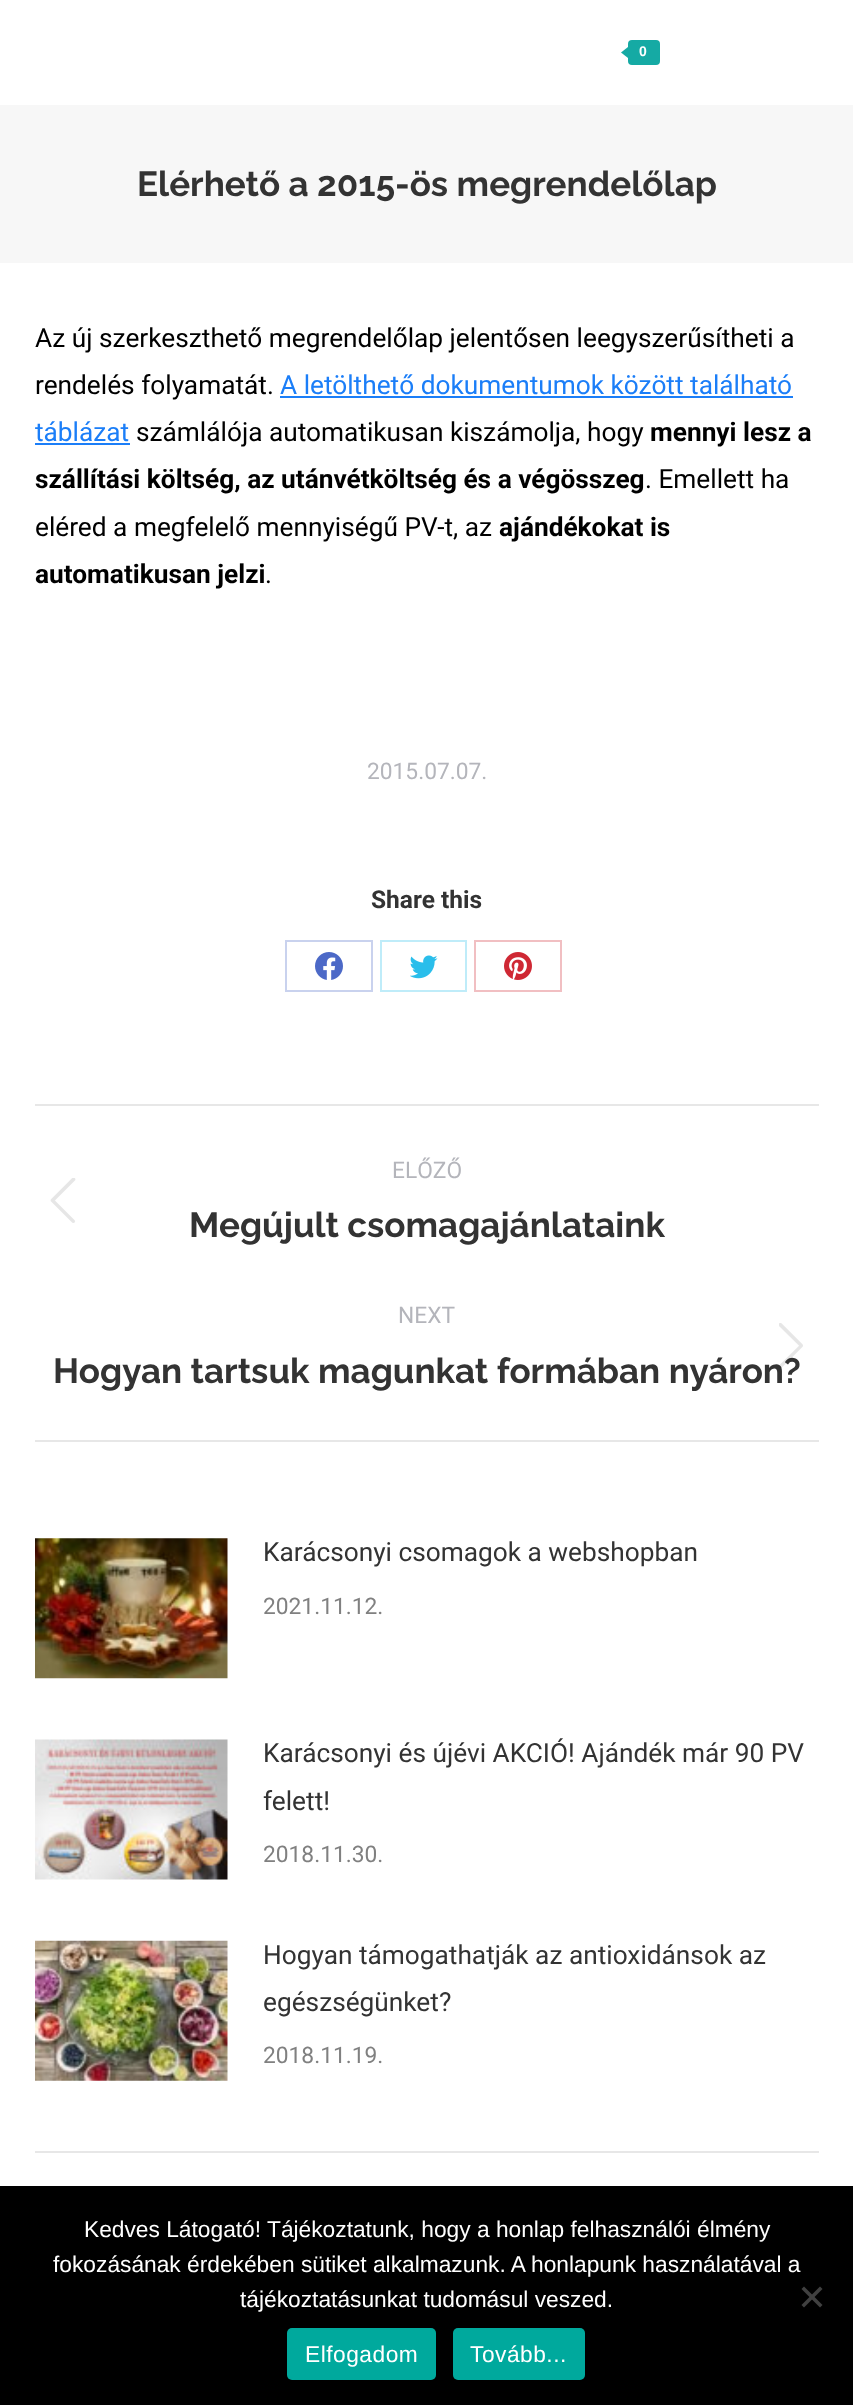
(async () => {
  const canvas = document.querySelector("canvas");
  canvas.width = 853;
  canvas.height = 2405;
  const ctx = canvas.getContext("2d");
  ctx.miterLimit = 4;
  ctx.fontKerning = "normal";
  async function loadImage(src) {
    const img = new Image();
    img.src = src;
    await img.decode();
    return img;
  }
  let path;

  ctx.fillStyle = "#ffffff";
  ctx.fillRect(0, 0, 853, 2405);
  ctx.fillStyle = "#15aaa4";
  ctx.beginPath();
  ctx.roundRect(628, 40, 32, 25, 4);
  ctx.fill();
  path = new Path2D("M628 47V58L621 52.5Z");
  ctx.fill(path);
  for (const [x, y, w, h, color] of [
    [0, 105, 853, 158, "#f7f7f7"],
    [280, 396, 513, 2, "#1b7ef8"],
    [35, 443, 95, 2, "#1b7ef8"],
  ]) {
    ctx.fillStyle = color;
    ctx.fillRect(x, y, w, h);
  }
  ctx.strokeStyle = "#c9d2ee";
  ctx.lineWidth = 2;
  ctx.strokeRect(286, 941, 86, 50);
  ctx.drawImage(await loadImage("img/1.png"), 315, 952, 28, 28);
  ctx.strokeStyle = "#bfecf9";
  ctx.strokeRect(381, 941, 85, 50);
  ctx.drawImage(await loadImage("img/2.png"), 410, 955, 28, 24);
  ctx.strokeStyle = "#f1bfc2";
  ctx.strokeRect(475, 941, 86, 50);
  ctx.drawImage(await loadImage("img/3.png"), 504, 952, 28, 28);
  ctx.fillStyle = "#e7e7e7";
  ctx.fillRect(35, 1104, 784, 2);
  ctx.fillRect(35, 1440, 784, 2);
  ctx.drawImage(await loadImage("img/4.png"), 50, 1178, 26, 45);
  ctx.fillRect(35, 2151, 784, 2);
  ctx.drawImage(await loadImage("img/6.png"), 35, 1538, 193, 141);
  ctx.drawImage(await loadImage("img/7.png"), 35, 1739, 193, 141);
  ctx.drawImage(await loadImage("img/8.png"), 35, 1940, 193, 141);
  ctx.fillStyle = "#000000";
  ctx.fillRect(0, 2186, 853, 219);
  ctx.fillStyle = "#404040";
  path = new Path2D("M820 2286.5L822.5 2289L804 2307.5L801.5 2305Z");
  ctx.fill(path);
  path = new Path2D("M801.5 2289L804 2286.5L822.5 2305L820 2307.5Z");
  ctx.fill(path);
  ctx.fillStyle = "#00a99d";
  ctx.beginPath();
  ctx.roundRect(287, 2328, 149, 52, 5);
  ctx.fill();
  ctx.beginPath();
  ctx.roundRect(453, 2328, 132, 52, 5);
  ctx.fill();
  ctx.font = "bold 14px Liberation Sans";
  ctx.fillStyle = "#ffffff";
  ctx.fillText("0", 639, 56);
  ctx.font = "bold 35px Raleway";
  ctx.fillStyle = "#333333";
  ctx.fillText("Elérhető a 2015-ös megrendelőlap", 137, 196);
  ctx.font = "26.25px Roboto";
  ctx.fillStyle = "#000000";
  ctx.fillText("Az új szerkeszthető megrendelőlap jelentősen leegyszerűsítheti a", 35, 347);
  ctx.fillText("rendelés folyamatát.", 35, 394);
  ctx.fillStyle = "#1b7ef8";
  ctx.fillText("A letölthető dokumentumok között található", 280, 394);
  ctx.fillText("táblázat", 35, 441);
  ctx.fillStyle = "#000000";
  ctx.fillText("számlálója automatikusan kiszámolja, hogy", 136, 441);
  ctx.font = "bold 26.25px Roboto";
  ctx.fillText("mennyi lesz a", 650, 441);
  ctx.fillText("szállítási költség, az utánvétköltség és a végösszeg", 35, 488);
  ctx.font = "26.25px Roboto";
  ctx.fillText(". Emellett ha", 645, 488);
  ctx.fillText("eléred a megfelelő mennyiségű PV-t, az", 35, 536);
  ctx.font = "bold 26.25px Roboto";
  ctx.fillText("ajándékokat is", 499, 536);
  ctx.fillText("automatikusan jelzi", 35, 583);
  ctx.font = "26.25px Roboto";
  ctx.fillText(".", 265, 583);
  ctx.font = "22.75px Roboto";
  ctx.fillStyle = "#b4b5bb";
  ctx.fillText("2015.07.07.", 367, 779);
  ctx.font = "bold 24.5px Roboto";
  ctx.fillStyle = "#333333";
  ctx.fillText("Share this", 371, 908);
  ctx.font = "22.75px Roboto";
  ctx.fillStyle = "#b4b5bb";
  ctx.fillText("ELŐZŐ", 392, 1178);
  ctx.font = "bold 35px Raleway";
  ctx.fillStyle = "#333333";
  ctx.fillText("Megújult csomagajánlataink", 189, 1237);
  ctx.font = "22.75px Roboto";
  ctx.fillStyle = "#b4b5bb";
  ctx.fillText("NEXT", 398, 1323);
  ctx.font = "bold 35px Raleway";
  ctx.fillStyle = "#333333";
  ctx.fillText("Hogyan tartsuk magunkat formában nyáron?", 53, 1383);
  ctx.drawImage(await loadImage("img/5.png"), 779, 1323, 24, 45);
  ctx.font = "26.25px Roboto";
  ctx.fillText("Karácsonyi csomagok a webshopban", 263, 1561);
  ctx.font = "22.75px Roboto";
  ctx.fillStyle = "#808080";
  ctx.fillText("2021.11.12.", 263, 1614);
  ctx.font = "26.25px Roboto";
  ctx.fillStyle = "#333333";
  ctx.fillText("Karácsonyi és újévi AKCIÓ! Ajándék már 90 PV", 263, 1762);
  ctx.fillText("felett!", 263, 1810);
  ctx.font = "22.75px Roboto";
  ctx.fillStyle = "#808080";
  ctx.fillText("2018.11.30.", 263, 1862);
  ctx.font = "26.25px Roboto";
  ctx.fillStyle = "#333333";
  ctx.fillText("Hogyan támogathatják az antioxidánsok az", 263, 1964);
  ctx.fillText("egészségünket?", 263, 2011);
  ctx.font = "22.75px Roboto";
  ctx.fillStyle = "#808080";
  ctx.fillText("2018.11.19.", 263, 2063);
  ctx.font = "22.75px Liberation Sans";
  ctx.fillStyle = "#ffffff";
  for (const [text, x, y] of [
    ["Kedves Látogató! Tájékoztatunk, hogy a honlap felhasználói élmény", 84, 2237],
    ["fokozásának érdekében sütiket alkalmazunk. A honlapunk használatával a", 53, 2272],
    ["tájékoztatásunkat tudomásul veszed.", 240, 2307],
  ]) {
    ctx.fillText(text, x, y);
  }
  ctx.letterSpacing = "0.5px";
  ctx.fillText("Elfogadom", 305, 2362);
  ctx.fillText("Tovább...", 470, 2362);
})();
